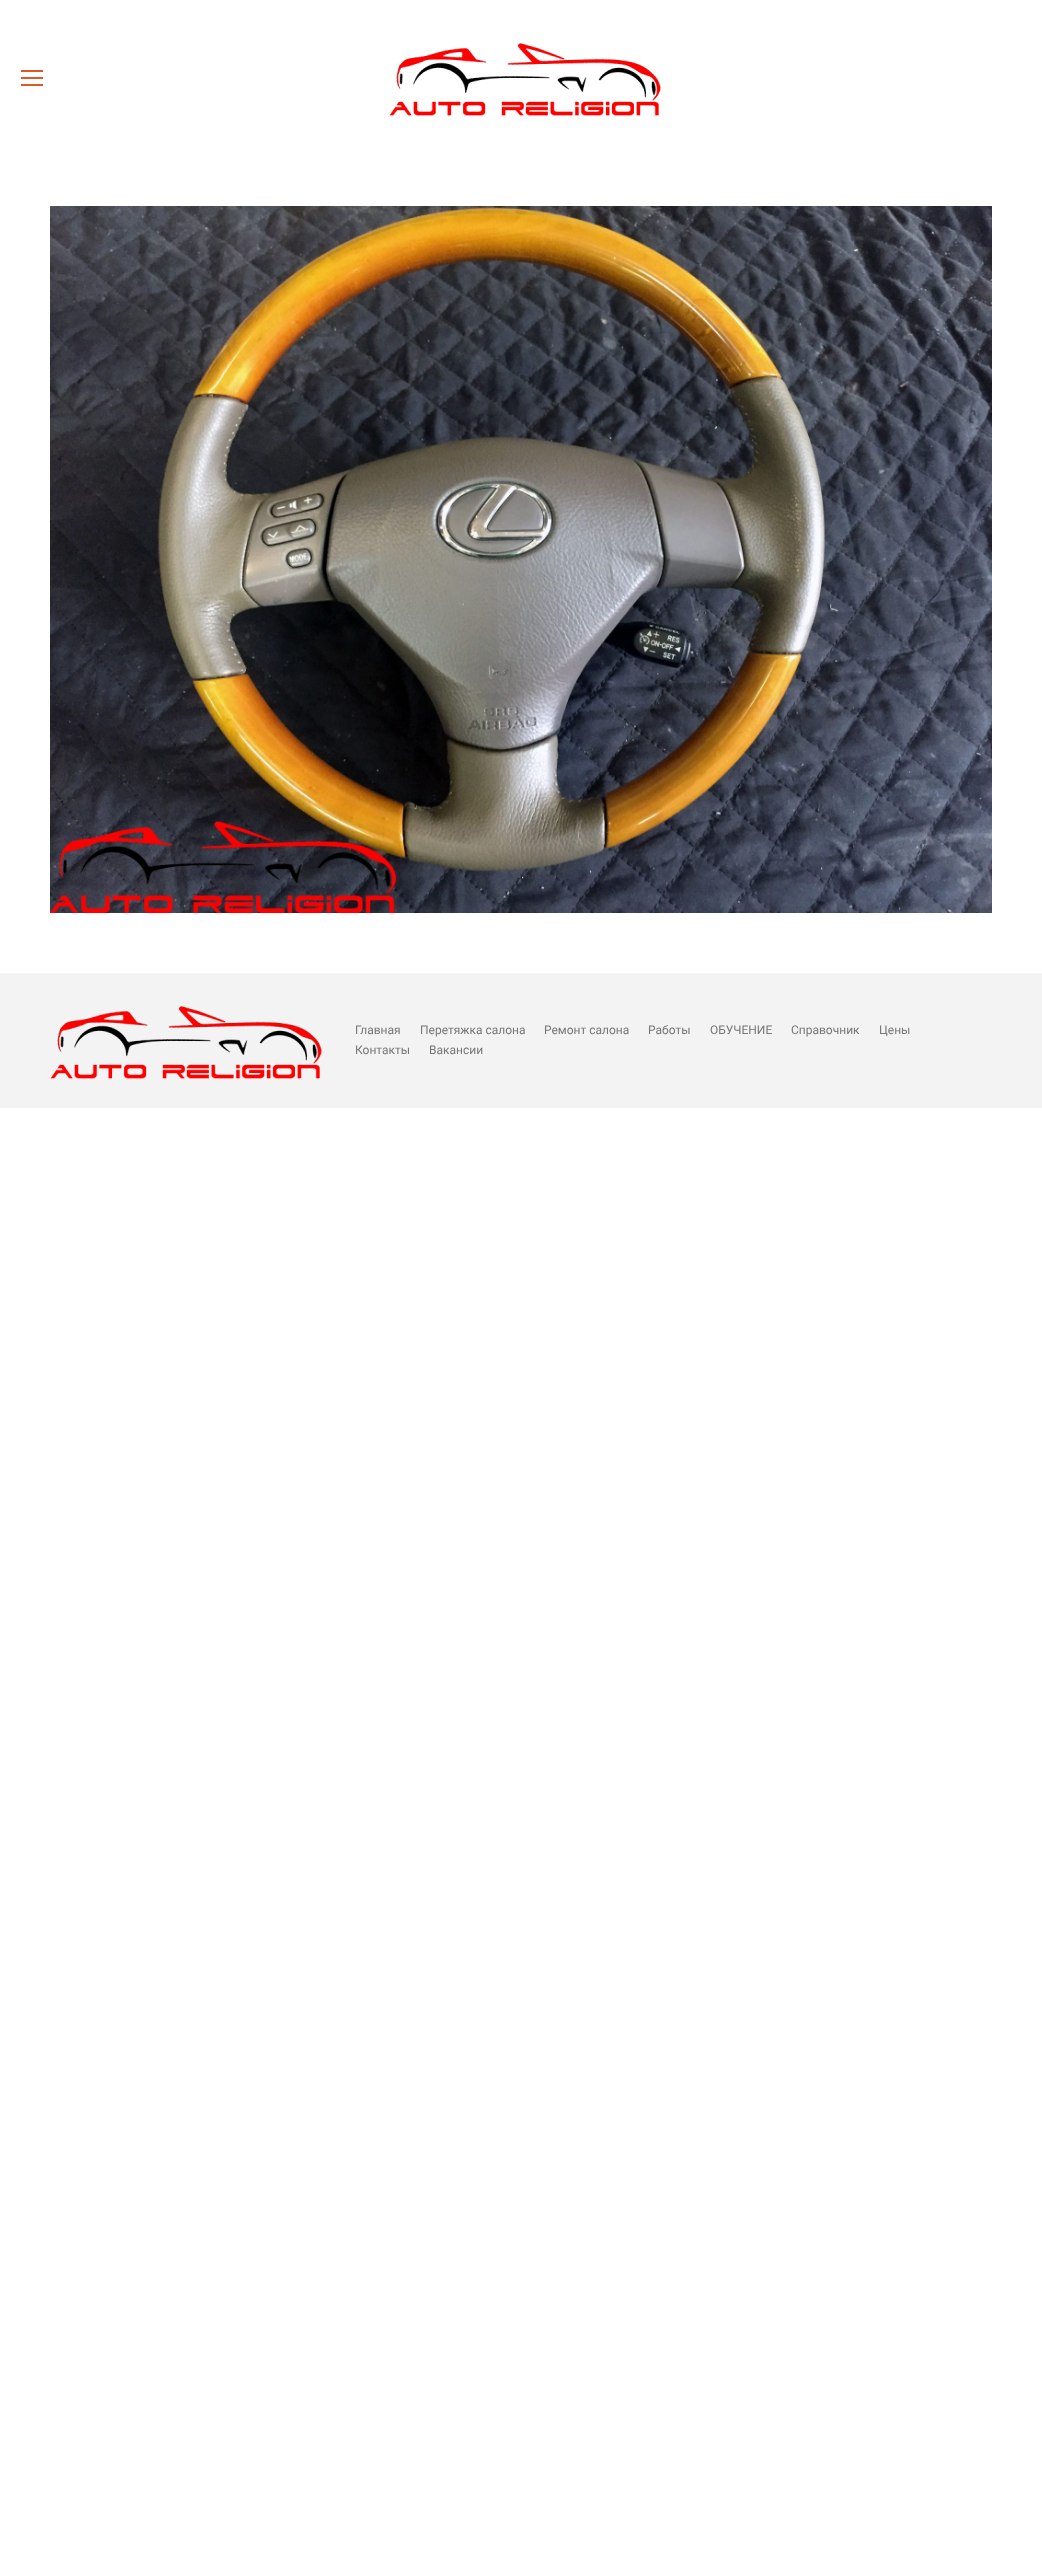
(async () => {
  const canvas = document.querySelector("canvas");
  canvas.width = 1042;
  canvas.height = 2555;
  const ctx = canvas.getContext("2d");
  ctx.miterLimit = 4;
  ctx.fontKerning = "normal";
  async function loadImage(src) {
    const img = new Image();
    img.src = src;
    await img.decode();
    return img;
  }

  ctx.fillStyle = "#ffffff";
  ctx.fillRect(0, 0, 1042, 2555);
  for (const [x, y, w, h, color] of [
    [21, 70, 22, 2, "#df5828"],
    [21, 77, 22, 2, "#df5828"],
    [21, 84, 22, 2, "#df5828"],
  ]) {
    ctx.fillStyle = color;
    ctx.fillRect(x, y, w, h);
  }
  ctx.drawImage(await loadImage("img/1.png"), 389, 43, 272, 73);
  ctx.drawImage(await loadImage("img/2.png"), 50, 206, 942, 707);
  ctx.fillStyle = "#f3f3f3";
  ctx.fillRect(0, 973, 1042, 135);
  ctx.drawImage(await loadImage("img/3.png"), 50, 1006, 272, 73);
  ctx.font = "12px Roboto";
  ctx.fillStyle = "#777777";
  for (const [text, x, y] of [
    ["Главная", 355, 1034],
    ["Перетяжка салона", 420, 1034],
    ["Ремонт салона", 544, 1034],
    ["Работы", 648, 1034],
    ["ОБУЧЕНИЕ", 710, 1034],
    ["Справочник", 791, 1034],
    ["Цены", 879, 1034],
    ["Контакты", 355, 1054],
    ["Вакансии", 429, 1054],
  ]) {
    ctx.fillText(text, x, y);
  }
})();
